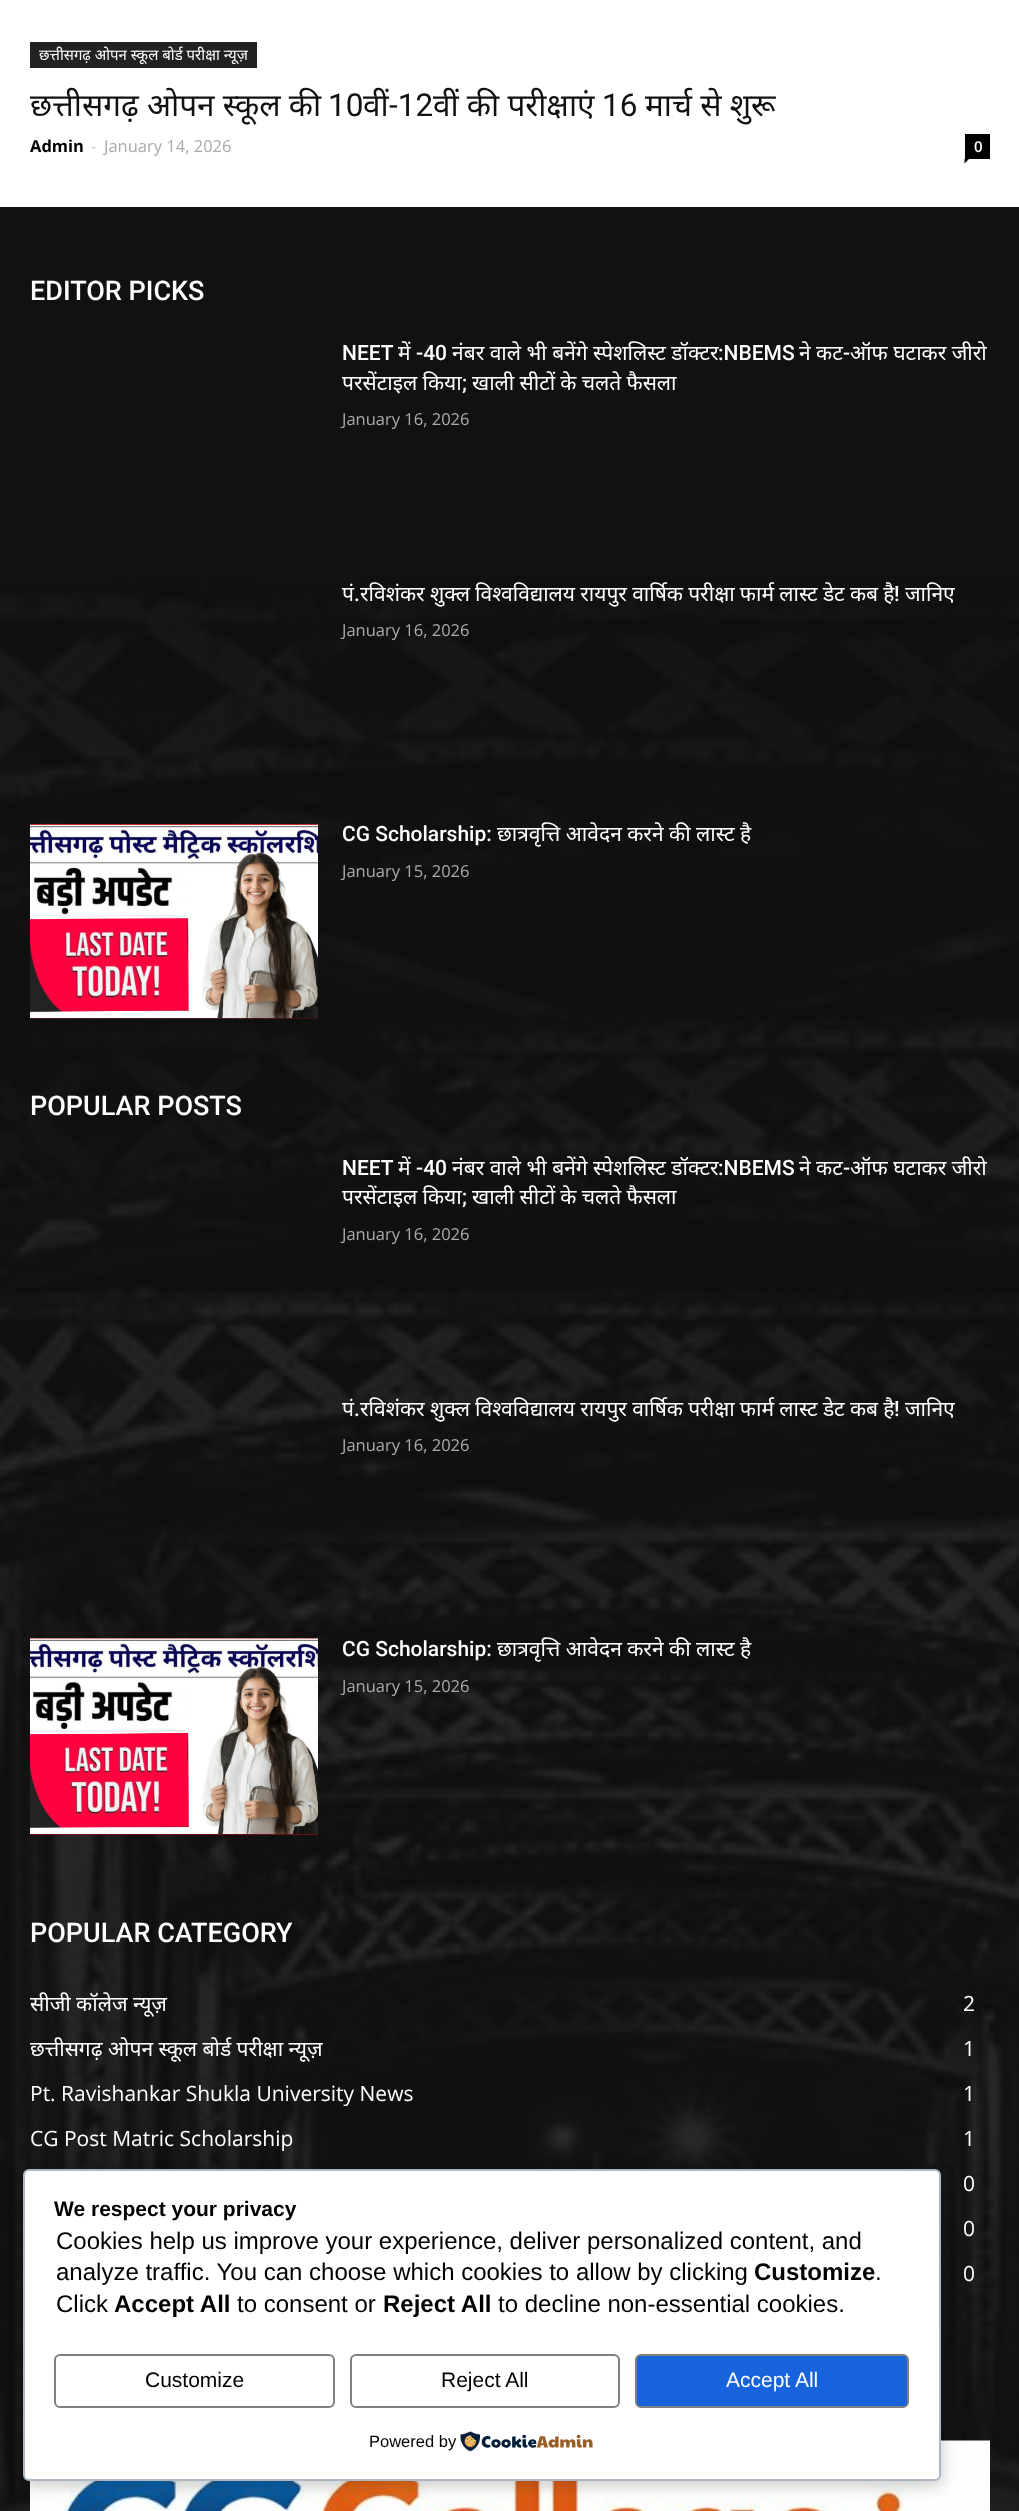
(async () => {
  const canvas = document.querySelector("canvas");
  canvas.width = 1019;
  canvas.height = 2511;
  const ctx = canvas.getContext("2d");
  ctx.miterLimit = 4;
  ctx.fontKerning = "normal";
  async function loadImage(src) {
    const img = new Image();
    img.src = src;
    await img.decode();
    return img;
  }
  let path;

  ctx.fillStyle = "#ffffff";
  ctx.fillRect(0, 0, 1019, 2511);
  ctx.fillStyle = "#222222";
  ctx.fillRect(30, 42, 227, 26);
  ctx.fillStyle = "#000000";
  ctx.fillRect(965, 134, 25, 25);
  path = new Path2D("M964.5 159H969L964.5 163.5Z");
  ctx.fill(path);
  ctx.fillStyle = "#111111";
  ctx.fillRect(0, 207, 1019, 2304);
  ctx.drawImage(await loadImage("img/1.png"), 0, 577, 1019, 1934);
  ctx.drawImage(await loadImage("img/2.png"), 30, 824, 288, 195);
  ctx.drawImage(await loadImage("img/3.png"), 30, 1638, 288, 197);
  ctx.drawImage(await loadImage("img/4.png"), 30, 2440, 960, 71);
  ctx.fillStyle = "rgba(0, 0, 0, 0.2)";
  ctx.filter = "blur(7.5px)";
  ctx.beginPath();
  ctx.roundRect(24, 2174, 918, 312, 6);
  ctx.fill();
  ctx.filter = "none";
  ctx.fillStyle = "#ffffff";
  ctx.beginPath();
  ctx.roundRect(24, 2170, 916, 310, 5);
  ctx.fill();
  ctx.strokeStyle = "#abb8c3";
  ctx.lineWidth = 2;
  ctx.stroke();
  ctx.beginPath();
  ctx.roundRect(55, 2355, 279, 52, 5);
  ctx.strokeStyle = "#808080";
  ctx.stroke();
  ctx.beginPath();
  ctx.roundRect(351, 2355, 268, 52, 5);
  ctx.stroke();
  ctx.fillStyle = "#1863dc";
  ctx.beginPath();
  ctx.roundRect(636, 2355, 272, 52, 5);
  ctx.fill();
  ctx.stroke();
  ctx.drawImage(await loadImage("img/5.png"), 460, 2431, 133, 21);
  ctx.font = "15px Noto Sans";
  ctx.fillStyle = "#ffffff";
  ctx.fillText("छत्तीसगढ़ ओपन स्कूल बोर्ड परीक्षा न्यूज़", 39, 60);
  ctx.font = "31.5px Noto Sans";
  ctx.fillStyle = "#111111";
  ctx.fillText("छत्तीसगढ़ ओपन स्कूल की", 30, 116);
  ctx.font = "31.5px Roboto";
  ctx.fillText("10", 328, 116);
  ctx.font = "31.5px Noto Sans";
  ctx.fillText("वीं", 363, 116);
  ctx.font = "31.5px Roboto";
  ctx.fillText("-12", 389, 116);
  ctx.font = "31.5px Noto Sans";
  ctx.fillText("वीं की परीक्षाएं", 433, 116);
  ctx.font = "31.5px Roboto";
  ctx.fillText("16", 602, 116);
  ctx.font = "31.5px Noto Sans";
  ctx.fillText("मार्च से शुरू", 645, 116);
  ctx.font = "bold 16.5px Open Sans";
  ctx.fillStyle = "#000000";
  ctx.fillText("Admin", 30, 152);
  ctx.font = "16.5px Open Sans";
  ctx.fillStyle = "#cccccc";
  ctx.fillText("-", 91, 152);
  ctx.fillStyle = "#aaaaaa";
  ctx.fillText("January 14, 2026", 104, 152);
  ctx.font = "600 15px Open Sans";
  ctx.fillStyle = "#ffffff";
  ctx.fillText("0", 974, 152);
  ctx.font = "500 27px Roboto";
  ctx.fillText("EDITOR PICKS", 30, 300);
  ctx.font = "500 21px Roboto";
  ctx.fillText("NEET", 342, 360);
  ctx.font = "21px Noto Sans";
  ctx.fillText("में", 398, 360);
  ctx.font = "500 21px Roboto";
  ctx.fillText("-40", 416, 360);
  ctx.font = "21px Noto Sans";
  ctx.fillText("नंबर वाले भी बनेंगे स्पेशलिस्ट डॉक्टर", 452, 360);
  ctx.font = "500 21px Roboto";
  ctx.fillText(":NBEMS", 718, 360);
  ctx.font = "21px Noto Sans";
  ctx.fillText("ने कट", 799, 360);
  ctx.font = "500 21px Roboto";
  ctx.fillText("-", 843, 360);
  ctx.font = "21px Noto Sans";
  ctx.fillText("ऑफ घटाकर जीरो", 850, 360);
  ctx.wordSpacing = "-0.25px";
  ctx.fillText("परसेंटाइल किया", 342, 390);
  ctx.wordSpacing = "0px";
  ctx.font = "500 21px Roboto";
  ctx.fillText(";", 462, 390);
  ctx.wordSpacing = "-0.25px";
  ctx.font = "21px Noto Sans";
  ctx.fillText("खाली सीटों के चलते फैसला", 472, 390);
  ctx.wordSpacing = "0px";
  ctx.font = "16.5px Open Sans";
  ctx.fillStyle = "#aaaaaa";
  ctx.fillText("January 16, 2026", 342, 425);
  ctx.font = "21px Noto Sans";
  ctx.fillStyle = "#ffffff";
  ctx.fillText("पं", 342, 601);
  ctx.font = "500 21px Roboto";
  ctx.fillText(".", 354, 601);
  ctx.wordSpacing = "-0.25px";
  ctx.font = "21px Noto Sans";
  ctx.fillText("रविशंकर शुक्ल विश्वविद्यालय रायपुर वार्षिक परीक्षा फार्म लास्ट डेट कब है", 360, 601);
  ctx.wordSpacing = "0px";
  ctx.font = "500 21px Roboto";
  ctx.fillText("!", 894, 601);
  ctx.font = "21px Noto Sans";
  ctx.fillText("जानिए", 905, 601);
  ctx.font = "16.5px Open Sans";
  ctx.fillStyle = "#aaaaaa";
  ctx.fillText("January 16, 2026", 342, 636);
  ctx.font = "500 21px Roboto";
  ctx.fillStyle = "#ffffff";
  ctx.fillText("CG Scholarship:", 342, 841);
  ctx.font = "21px Noto Sans";
  ctx.fillText("छात्रवृत्ति आवेदन करने की लास्ट है", 497, 841);
  ctx.font = "16.5px Open Sans";
  ctx.fillStyle = "#aaaaaa";
  ctx.fillText("January 15, 2026", 342, 877);
  ctx.font = "500 27px Roboto";
  ctx.fillStyle = "#ffffff";
  ctx.fillText("POPULAR POSTS", 30, 1115);
  ctx.font = "500 21px Roboto";
  ctx.fillText("NEET", 342, 1175);
  ctx.font = "21px Noto Sans";
  ctx.fillText("में", 398, 1175);
  ctx.font = "500 21px Roboto";
  ctx.fillText("-40", 416, 1175);
  ctx.font = "21px Noto Sans";
  ctx.fillText("नंबर वाले भी बनेंगे स्पेशलिस्ट डॉक्टर", 452, 1175);
  ctx.font = "500 21px Roboto";
  ctx.fillText(":NBEMS", 718, 1175);
  ctx.font = "21px Noto Sans";
  ctx.fillText("ने कट", 799, 1175);
  ctx.font = "500 21px Roboto";
  ctx.fillText("-", 843, 1175);
  ctx.font = "21px Noto Sans";
  ctx.fillText("ऑफ घटाकर जीरो", 850, 1175);
  ctx.wordSpacing = "-0.25px";
  ctx.fillText("परसेंटाइल किया", 342, 1204);
  ctx.wordSpacing = "0px";
  ctx.font = "500 21px Roboto";
  ctx.fillText(";", 462, 1204);
  ctx.wordSpacing = "-0.25px";
  ctx.font = "21px Noto Sans";
  ctx.fillText("खाली सीटों के चलते फैसला", 472, 1204);
  ctx.wordSpacing = "0px";
  ctx.font = "16.5px Open Sans";
  ctx.fillStyle = "#aaaaaa";
  ctx.fillText("January 16, 2026", 342, 1240);
  ctx.font = "21px Noto Sans";
  ctx.fillStyle = "#ffffff";
  ctx.fillText("पं", 342, 1416);
  ctx.font = "500 21px Roboto";
  ctx.fillText(".", 354, 1416);
  ctx.wordSpacing = "-0.25px";
  ctx.font = "21px Noto Sans";
  ctx.fillText("रविशंकर शुक्ल विश्वविद्यालय रायपुर वार्षिक परीक्षा फार्म लास्ट डेट कब है", 360, 1416);
  ctx.wordSpacing = "0px";
  ctx.font = "500 21px Roboto";
  ctx.fillText("!", 894, 1416);
  ctx.font = "21px Noto Sans";
  ctx.fillText("जानिए", 905, 1416);
  ctx.font = "16.5px Open Sans";
  ctx.fillStyle = "#aaaaaa";
  ctx.fillText("January 16, 2026", 342, 1451);
  ctx.font = "500 21px Roboto";
  ctx.fillStyle = "#ffffff";
  ctx.fillText("CG Scholarship:", 342, 1656);
  ctx.font = "21px Noto Sans";
  ctx.fillText("छात्रवृत्ति आवेदन करने की लास्ट है", 497, 1656);
  ctx.font = "16.5px Open Sans";
  ctx.fillStyle = "#aaaaaa";
  ctx.fillText("January 15, 2026", 342, 1692);
  ctx.font = "500 27px Roboto";
  ctx.fillStyle = "#ffffff";
  ctx.fillText("POPULAR CATEGORY", 30, 1942);
  ctx.save();
  ctx.beginPath();
  ctx.rect(30, 1910, 960, 408);
  ctx.clip();
  ctx.font = "21px Noto Sans";
  ctx.fillText("सीजी कॉलेज न्यूज़", 30, 2011);
  ctx.restore();
  ctx.font = "21px Open Sans";
  ctx.fillText("2", 963, 2011);
  ctx.font = "21px Noto Sans";
  ctx.fillText("छत्तीसगढ़ ओपन स्कूल बोर्ड परीक्षा न्यूज़", 30, 2056);
  ctx.font = "21px Open Sans";
  for (const [text, x, y] of [
    ["1", 963, 2056],
    ["Pt. Ravishankar Shukla University News", 30, 2101],
    ["1", 963, 2101],
    ["CG Post Matric Scholarship", 30, 2146],
    ["1", 963, 2146],
    ["0", 963, 2191],
    ["0", 963, 2236],
    ["0", 963, 2281],
  ]) {
    ctx.fillText(text, x, y);
  }
  ctx.font = "bold 21px Liberation Sans";
  ctx.fillStyle = "#000000";
  ctx.fillText("We respect your privacy", 54, 2216);
  ctx.font = "24px Liberation Sans";
  ctx.fillText("Cookies help us improve your experience, deliver personalized content, and", 56, 2249);
  ctx.fillText("analyze traffic. You can choose which cookies to allow by clicking", 56, 2280);
  ctx.font = "bold 24px Liberation Sans";
  ctx.fillText("Customize", 754, 2280);
  ctx.font = "24px Liberation Sans";
  ctx.fillText(".", 875, 2280);
  ctx.fillText("Click", 56, 2312);
  ctx.font = "bold 24px Liberation Sans";
  ctx.fillText("Accept All", 114, 2312);
  ctx.font = "24px Liberation Sans";
  ctx.fillText("to consent or", 237, 2312);
  ctx.font = "bold 24px Liberation Sans";
  ctx.fillText("Reject All", 383, 2312);
  ctx.font = "24px Liberation Sans";
  ctx.fillText("to decline non-essential cookies.", 498, 2312);
  ctx.font = "21px Liberation Sans";
  ctx.fillText("Customize", 145, 2387);
  ctx.fillText("Reject All", 441, 2387);
  ctx.fillStyle = "#ffffff";
  ctx.fillText("Accept All", 726, 2387);
  ctx.font = "16.5px Liberation Sans";
  ctx.fillStyle = "#000000";
  ctx.fillText("Powered by", 369, 2447);
})();
